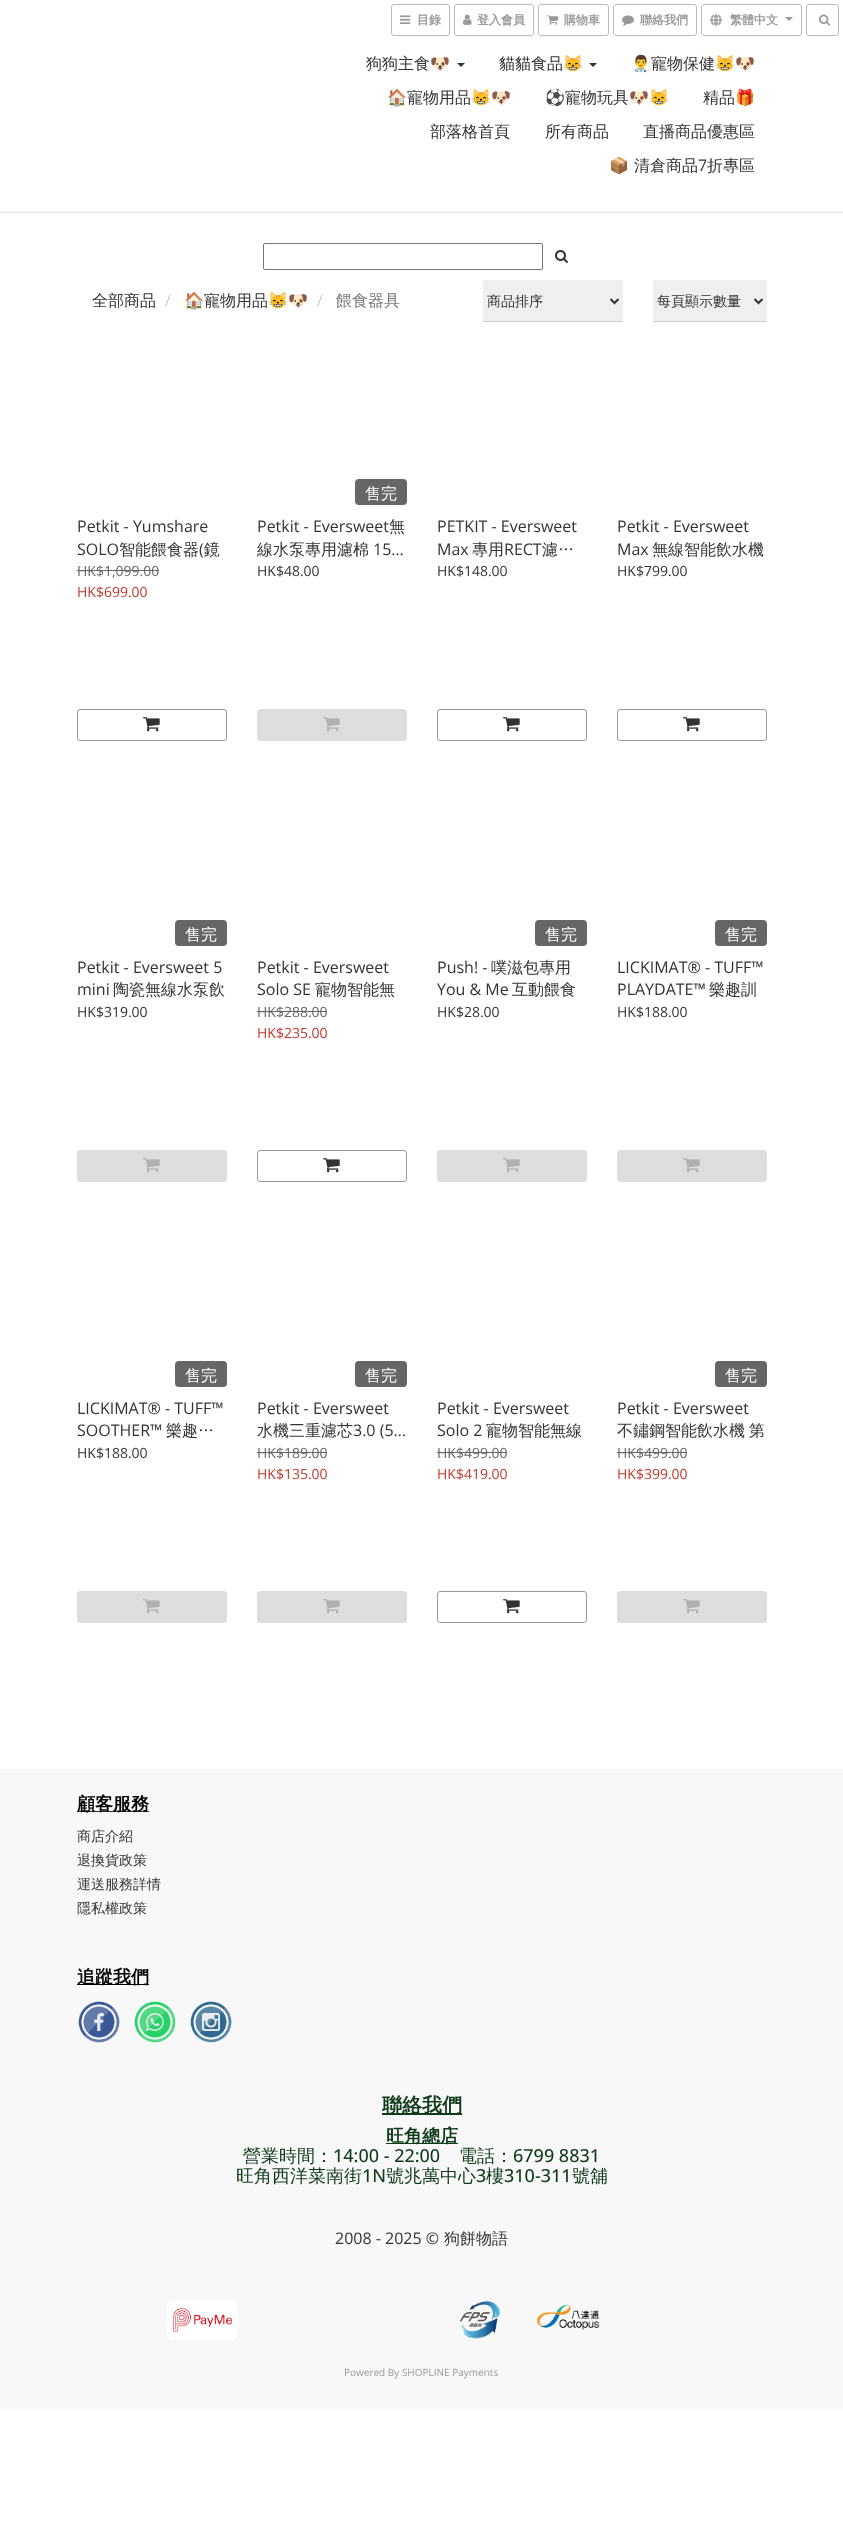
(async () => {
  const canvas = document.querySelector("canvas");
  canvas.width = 843;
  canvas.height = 2547;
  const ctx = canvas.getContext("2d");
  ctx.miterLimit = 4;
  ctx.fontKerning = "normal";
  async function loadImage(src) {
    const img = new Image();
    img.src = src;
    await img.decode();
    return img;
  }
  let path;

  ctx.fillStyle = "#ffffff";
  ctx.fillRect(0, 0, 843, 2547);
  ctx.beginPath();
  ctx.roundRect(391.5, 4.5, 58, 31, 2.5);
  ctx.strokeStyle = "#bbbbbb";
  ctx.stroke();
  ctx.drawImage(await loadImage("img/1.png"), 400, 15, 11, 9);
  ctx.beginPath();
  ctx.roundRect(454.5, 4.5, 79, 31, 2.5);
  ctx.stroke();
  ctx.drawImage(await loadImage("img/2.png"), 463, 14, 9, 11);
  ctx.beginPath();
  ctx.roundRect(538.5, 4.5, 70, 31, 2.5);
  ctx.stroke();
  ctx.drawImage(await loadImage("img/3.png"), 547, 15, 12, 10);
  ctx.beginPath();
  ctx.roundRect(613.5, 4.5, 83, 31, 2.5);
  ctx.stroke();
  ctx.drawImage(await loadImage("img/4.png"), 622, 15, 12, 11);
  ctx.beginPath();
  ctx.roundRect(701.5, 4.5, 100, 31, 2.5);
  ctx.stroke();
  ctx.drawImage(await loadImage("img/5.png"), 710, 14, 12, 12);
  ctx.fillStyle = "#999999";
  path = new Path2D("M785 17H793L789 21Z");
  ctx.fill(path);
  ctx.beginPath();
  ctx.roundRect(806.5, 4.5, 32, 31, 2.5);
  ctx.stroke();
  ctx.drawImage(await loadImage("img/6.png"), 819, 14, 11, 12);
  ctx.fillStyle = "#e0e0e0";
  ctx.fillRect(0, 212, 843, 1);
  ctx.fillStyle = "#333333";
  path = new Path2D("M457 63H465L461 67Z");
  ctx.fill(path);
  path = new Path2D("M589 63H597L593 67Z");
  ctx.fill(path);
  ctx.beginPath();
  ctx.roundRect(263.5, 243.5, 279, 26, 1.5);
  ctx.strokeStyle = "#767676";
  ctx.stroke();
  ctx.drawImage(await loadImage("img/7.png"), 555, 250, 13, 13);
  ctx.fillStyle = "#efefef";
  ctx.fillRect(483, 280, 140, 41);
  ctx.fillStyle = "#cccccc";
  ctx.fillRect(483, 321, 140, 1);
  path = new Path2D("M610.5 299L614.5 303L618.5 299");
  ctx.strokeStyle = "#333333";
  ctx.lineWidth = 2;
  ctx.stroke(path);
  ctx.fillStyle = "#efefef";
  ctx.fillRect(653, 280, 114, 41);
  ctx.fillStyle = "#cccccc";
  ctx.fillRect(653, 321, 114, 1);
  path = new Path2D("M754.5 299L758.5 303L762.5 299");
  ctx.stroke(path);
  ctx.fillStyle = "#666666";
  ctx.fillRect(77, 570, 82, 1);
  ctx.beginPath();
  ctx.roundRect(77.5, 709.5, 149, 31, 2.5);
  ctx.strokeStyle = "#999999";
  ctx.lineWidth = 1;
  ctx.stroke();
  ctx.drawImage(await loadImage("img/8.png"), 143, 717, 17, 15);
  ctx.beginPath();
  ctx.roundRect(355, 479, 52, 26, 4);
  ctx.fill();
  ctx.fillStyle = "#dddddd";
  ctx.beginPath();
  ctx.roundRect(257.5, 709.5, 149, 31, 2.5);
  ctx.fill();
  ctx.strokeStyle = "#dddddd";
  ctx.stroke();
  ctx.drawImage(await loadImage("img/9.png"), 323, 717, 17, 15);
  ctx.beginPath();
  ctx.roundRect(437.5, 709.5, 149, 31, 2.5);
  ctx.strokeStyle = "#999999";
  ctx.stroke();
  ctx.drawImage(await loadImage("img/8.png"), 503, 717, 17, 15);
  ctx.beginPath();
  ctx.roundRect(617.5, 709.5, 149, 31, 2.5);
  ctx.stroke();
  ctx.drawImage(await loadImage("img/8.png"), 683, 717, 17, 15);
  ctx.fillStyle = "#666666";
  ctx.beginPath();
  ctx.roundRect(175, 920, 52, 26, 4);
  ctx.fill();
  ctx.fillStyle = "#dddddd";
  ctx.beginPath();
  ctx.roundRect(77.5, 1150.5, 149, 31, 2.5);
  ctx.fill();
  ctx.strokeStyle = "#dddddd";
  ctx.stroke();
  ctx.drawImage(await loadImage("img/9.png"), 143, 1158, 17, 15);
  ctx.fillStyle = "#666666";
  ctx.fillRect(257, 1011, 70, 1);
  ctx.beginPath();
  ctx.roundRect(257.5, 1150.5, 149, 31, 2.5);
  ctx.strokeStyle = "#999999";
  ctx.stroke();
  ctx.drawImage(await loadImage("img/8.png"), 323, 1158, 17, 15);
  ctx.beginPath();
  ctx.roundRect(535, 920, 52, 26, 4);
  ctx.fill();
  ctx.fillStyle = "#dddddd";
  ctx.beginPath();
  ctx.roundRect(437.5, 1150.5, 149, 31, 2.5);
  ctx.fill();
  ctx.strokeStyle = "#dddddd";
  ctx.stroke();
  ctx.drawImage(await loadImage("img/9.png"), 503, 1158, 17, 15);
  ctx.fillStyle = "#666666";
  ctx.beginPath();
  ctx.roundRect(715, 920, 52, 26, 4);
  ctx.fill();
  ctx.fillStyle = "#dddddd";
  ctx.beginPath();
  ctx.roundRect(617.5, 1150.5, 149, 31, 2.5);
  ctx.fill();
  ctx.stroke();
  ctx.drawImage(await loadImage("img/9.png"), 683, 1158, 17, 15);
  ctx.fillStyle = "#666666";
  ctx.beginPath();
  ctx.roundRect(175, 1361, 52, 26, 4);
  ctx.fill();
  ctx.fillStyle = "#dddddd";
  ctx.beginPath();
  ctx.roundRect(77.5, 1591.5, 149, 31, 2.5);
  ctx.fill();
  ctx.stroke();
  ctx.drawImage(await loadImage("img/9.png"), 143, 1599, 17, 15);
  ctx.fillStyle = "#666666";
  ctx.beginPath();
  ctx.roundRect(355, 1361, 52, 26, 4);
  ctx.fill();
  ctx.fillRect(257, 1452, 70, 1);
  ctx.fillStyle = "#dddddd";
  ctx.beginPath();
  ctx.roundRect(257.5, 1591.5, 149, 31, 2.5);
  ctx.fill();
  ctx.stroke();
  ctx.drawImage(await loadImage("img/9.png"), 323, 1599, 17, 15);
  ctx.fillStyle = "#666666";
  ctx.fillRect(437, 1452, 70, 1);
  ctx.beginPath();
  ctx.roundRect(437.5, 1591.5, 149, 31, 2.5);
  ctx.strokeStyle = "#999999";
  ctx.stroke();
  ctx.drawImage(await loadImage("img/8.png"), 503, 1599, 17, 15);
  ctx.beginPath();
  ctx.roundRect(715, 1361, 52, 26, 4);
  ctx.fill();
  ctx.fillRect(617, 1452, 70, 1);
  ctx.fillStyle = "#dddddd";
  ctx.beginPath();
  ctx.roundRect(617.5, 1591.5, 149, 31, 2.5);
  ctx.fill();
  ctx.strokeStyle = "#dddddd";
  ctx.stroke();
  ctx.drawImage(await loadImage("img/9.png"), 683, 1599, 17, 15);
  for (const [x, y, w, h, color] of [
    [0, 1769, 843, 641, "#f8f8f8"],
    [77, 1811, 72, 1, "#333333"],
    [77, 1984, 72, 1, "#000000"],
  ]) {
    ctx.fillStyle = color;
    ctx.fillRect(x, y, w, h);
  }
  ctx.drawImage(await loadImage("img/10.png"), 78, 2001, 42, 42);
  ctx.drawImage(await loadImage("img/11.png"), 134, 2001, 42, 42);
  ctx.drawImage(await loadImage("img/12.png"), 190, 2001, 42, 42);
  ctx.fillStyle = "#103b1b";
  ctx.fillRect(382, 2113, 80, 2);
  ctx.fillRect(386, 2143, 72, 1);
  ctx.drawImage(await loadImage("img/13.png"), 167, 2300, 71, 40);
  ctx.drawImage(await loadImage("img/14.png"), 459, 2301, 41, 38);
  ctx.drawImage(await loadImage("img/15.png"), 536, 2304, 64, 26);
  ctx.font = "bold 12px WenQuanYi Zen Hei";
  ctx.fillStyle = "#999999";
  for (const [text, x, y] of [
    ["目錄", 417, 24],
    ["登入會員", 477, 24],
    ["購物車", 564, 24],
    ["聯絡我們", 640, 24],
    ["繁體中文", 730, 24],
  ]) {
    ctx.fillText(text, x, y);
  }
  ctx.font = "500 16px WenQuanYi Zen Hei";
  ctx.fillStyle = "#333333";
  ctx.fillText("狗狗主食", 366, 69);
  ctx.font = "16px Noto Color Emoji";
  ctx.fillText("🐶", 430, 69);
  ctx.font = "500 16px WenQuanYi Zen Hei";
  ctx.fillText("貓貓食品", 499, 69);
  ctx.font = "16px Noto Color Emoji";
  ctx.fillText("😸", 563, 69);
  ctx.fillText("👨‍⚕️", 631, 69);
  ctx.font = "500 16px WenQuanYi Zen Hei";
  ctx.fillText("寵物保健", 651, 69);
  ctx.font = "16px Noto Color Emoji";
  ctx.fillText("😸🐶", 715, 69);
  ctx.fillText("🏠", 387, 103);
  ctx.font = "500 16px WenQuanYi Zen Hei";
  ctx.fillText("寵物用品", 407, 103);
  ctx.font = "16px Noto Color Emoji";
  ctx.fillText("😸🐶", 471, 103);
  ctx.fillText("⚽", 545, 103);
  ctx.font = "500 16px WenQuanYi Zen Hei";
  ctx.fillText("寵物玩具", 565, 103);
  ctx.font = "16px Noto Color Emoji";
  ctx.fillText("🐶😸", 629, 103);
  ctx.font = "500 16px WenQuanYi Zen Hei";
  ctx.fillText("精品", 703, 103);
  ctx.font = "16px Noto Color Emoji";
  ctx.fillText("🎁", 735, 103);
  ctx.font = "500 16px WenQuanYi Zen Hei";
  for (const [text, x, y] of [
    ["部落格首頁", 430, 137],
    ["所有商品", 545, 137],
    ["直播商品優惠區", 643, 137],
  ]) {
    ctx.fillText(text, x, y);
  }
  ctx.font = "16px Noto Color Emoji";
  ctx.fillText("📦", 609, 171);
  ctx.font = "500 16px WenQuanYi Zen Hei";
  ctx.fillText("清倉商品", 634, 171);
  ctx.font = "16px Open Sans";
  ctx.fillText("7", 698, 171);
  ctx.font = "500 16px WenQuanYi Zen Hei";
  ctx.fillText("折專區", 707, 171);
  ctx.fillText("全部商品", 92, 306);
  ctx.font = "16px Open Sans";
  ctx.fillStyle = "#cccccc";
  ctx.fillText("/", 165, 306);
  ctx.font = "16px Noto Color Emoji";
  ctx.fillStyle = "#333333";
  ctx.fillText("🏠", 184, 306);
  ctx.font = "500 16px WenQuanYi Zen Hei";
  ctx.fillText("寵物用品", 204, 306);
  ctx.font = "16px Noto Color Emoji";
  ctx.fillText("😸🐶", 268, 306);
  ctx.font = "16px Open Sans";
  ctx.fillStyle = "#cccccc";
  ctx.fillText("/", 317, 306);
  ctx.font = "500 16px WenQuanYi Zen Hei";
  ctx.fillStyle = "#777777";
  ctx.fillText("餵食器具", 336, 306);
  ctx.font = "500 14px WenQuanYi Zen Hei";
  ctx.fillStyle = "#333333";
  ctx.fillText("商品排序", 487, 306);
  ctx.fillText("每頁顯示數量", 657, 306);
  ctx.font = "16px Open Sans";
  ctx.fillText("Petkit - Yumshare", 77, 532);
  ctx.fillText("SOLO", 77, 555);
  ctx.font = "500 16px WenQuanYi Zen Hei";
  ctx.fillText("智能餵食器 鏡", 119, 555);
  ctx.font = "16px Open Sans";
  ctx.fillText("(", 199, 555);
  ctx.font = "14px Open Sans";
  ctx.fillStyle = "#666666";
  ctx.fillText("HK$1,099.00", 77, 576);
  ctx.fillStyle = "#c0392b";
  ctx.fillText("HK$699.00", 77, 597);
  ctx.font = "500 16px WenQuanYi Zen Hei";
  ctx.fillStyle = "#ffffff";
  ctx.fillText("售完", 365, 499);
  ctx.font = "16px Open Sans";
  ctx.fillStyle = "#333333";
  ctx.fillText("Petkit - Eversweet", 257, 532);
  ctx.font = "500 16px WenQuanYi Zen Hei";
  ctx.fillText("無", 389, 532);
  ctx.save();
  ctx.beginPath();
  ctx.rect(257, 515, 150, 45);
  ctx.clip();
  ctx.fillText("線水泵專用濾棉", 257, 555);
  ctx.restore();
  ctx.font = "16px Open Sans";
  ctx.fillText("15…", 373, 555);
  ctx.font = "14px Open Sans";
  ctx.fillText("HK$48.00", 257, 576);
  ctx.font = "16px Open Sans";
  ctx.fillText("PETKIT - Eversweet", 437, 532);
  ctx.fillText("Max", 437, 555);
  ctx.font = "500 16px WenQuanYi Zen Hei";
  ctx.fillText("專用", 472, 555);
  ctx.font = "16px Open Sans";
  ctx.fillText("RECT", 504, 555);
  ctx.font = "500 16px WenQuanYi Zen Hei";
  ctx.fillText("濾…", 542, 555);
  ctx.font = "14px Open Sans";
  ctx.fillText("HK$148.00", 437, 576);
  ctx.font = "16px Open Sans";
  ctx.fillText("Petkit - Eversweet", 617, 532);
  ctx.fillText("Max", 617, 555);
  ctx.font = "500 16px WenQuanYi Zen Hei";
  ctx.fillText("無線智能飲水機", 652, 555);
  ctx.font = "14px Open Sans";
  ctx.fillText("HK$799.00", 617, 576);
  ctx.font = "500 16px WenQuanYi Zen Hei";
  ctx.fillStyle = "#ffffff";
  ctx.fillText("售完", 185, 940);
  ctx.font = "16px Open Sans";
  ctx.fillStyle = "#333333";
  ctx.fillText("Petkit - Eversweet 5", 77, 973);
  ctx.fillText("mini", 77, 995);
  ctx.font = "500 16px WenQuanYi Zen Hei";
  ctx.fillText("陶瓷無線水泵飲", 113, 995);
  ctx.font = "14px Open Sans";
  ctx.fillText("HK$319.00", 77, 1017);
  ctx.font = "16px Open Sans";
  ctx.fillText("Petkit - Eversweet", 257, 973);
  ctx.fillText("Solo SE", 257, 995);
  ctx.font = "500 16px WenQuanYi Zen Hei";
  ctx.fillText("寵物智能無", 315, 995);
  ctx.font = "14px Open Sans";
  ctx.fillStyle = "#666666";
  ctx.fillText("HK$288.00", 257, 1017);
  ctx.fillStyle = "#c0392b";
  ctx.fillText("HK$235.00", 257, 1038);
  ctx.font = "500 16px WenQuanYi Zen Hei";
  ctx.fillStyle = "#ffffff";
  ctx.fillText("售完", 545, 940);
  ctx.font = "16px Open Sans";
  ctx.fillStyle = "#333333";
  ctx.fillText("Push! -", 437, 973);
  ctx.font = "500 16px WenQuanYi Zen Hei";
  ctx.fillText("噗滋包專用", 491, 973);
  ctx.font = "16px Open Sans";
  ctx.fillText("You & Me", 437, 995);
  ctx.font = "500 16px WenQuanYi Zen Hei";
  ctx.fillText("互動餵食", 512, 995);
  ctx.font = "14px Open Sans";
  ctx.fillText("HK$28.00", 437, 1017);
  ctx.font = "500 16px WenQuanYi Zen Hei";
  ctx.fillStyle = "#ffffff";
  ctx.fillText("售完", 725, 940);
  ctx.font = "16px Open Sans";
  ctx.fillStyle = "#333333";
  ctx.fillText("LICKIMAT® - TUFF™", 617, 973);
  ctx.fillText("PLAYDATE™", 617, 995);
  ctx.font = "500 16px WenQuanYi Zen Hei";
  ctx.fillText("樂趣訓", 709, 995);
  ctx.font = "14px Open Sans";
  ctx.fillText("HK$188.00", 617, 1017);
  ctx.font = "500 16px WenQuanYi Zen Hei";
  ctx.fillStyle = "#ffffff";
  ctx.fillText("售完", 185, 1381);
  ctx.font = "16px Open Sans";
  ctx.fillStyle = "#333333";
  ctx.fillText("LICKIMAT® - TUFF™", 77, 1414);
  ctx.fillText("SOOTHER™", 77, 1436);
  ctx.font = "500 16px WenQuanYi Zen Hei";
  ctx.fillText("樂趣…", 166, 1436);
  ctx.font = "14px Open Sans";
  ctx.fillText("HK$188.00", 77, 1458);
  ctx.font = "500 16px WenQuanYi Zen Hei";
  ctx.fillStyle = "#ffffff";
  ctx.fillText("售完", 365, 1381);
  ctx.font = "16px Open Sans";
  ctx.fillStyle = "#333333";
  ctx.fillText("Petkit - Eversweet", 257, 1414);
  ctx.font = "500 16px WenQuanYi Zen Hei";
  ctx.fillText("水機三重濾芯", 257, 1436);
  ctx.font = "16px Open Sans";
  ctx.fillText("3.0 (5…", 353, 1436);
  ctx.font = "14px Open Sans";
  ctx.fillStyle = "#666666";
  ctx.fillText("HK$189.00", 257, 1458);
  ctx.fillStyle = "#c0392b";
  ctx.fillText("HK$135.00", 257, 1479);
  ctx.font = "16px Open Sans";
  ctx.fillStyle = "#333333";
  ctx.fillText("Petkit - Eversweet", 437, 1414);
  ctx.fillText("Solo 2", 437, 1436);
  ctx.font = "500 16px WenQuanYi Zen Hei";
  ctx.fillText("寵物智能無線", 486, 1436);
  ctx.font = "14px Open Sans";
  ctx.fillStyle = "#666666";
  ctx.fillText("HK$499.00", 437, 1458);
  ctx.fillStyle = "#c0392b";
  ctx.fillText("HK$419.00", 437, 1479);
  ctx.font = "500 16px WenQuanYi Zen Hei";
  ctx.fillStyle = "#ffffff";
  ctx.fillText("售完", 725, 1381);
  ctx.font = "16px Open Sans";
  ctx.fillStyle = "#333333";
  ctx.fillText("Petkit - Eversweet", 617, 1414);
  ctx.wordSpacing = "-1px";
  ctx.font = "500 16px WenQuanYi Zen Hei";
  ctx.fillText("不鏽鋼智能飲水機 第", 617, 1436);
  ctx.wordSpacing = "0px";
  ctx.font = "14px Open Sans";
  ctx.fillStyle = "#666666";
  ctx.fillText("HK$499.00", 617, 1458);
  ctx.fillStyle = "#c0392b";
  ctx.fillText("HK$399.00", 617, 1479);
  ctx.font = "bold 18px WenQuanYi Zen Hei";
  ctx.fillStyle = "#000000";
  ctx.fillText("顧客服務", 77, 1810);
  ctx.font = "500 14px WenQuanYi Zen Hei";
  ctx.fillStyle = "#333333";
  for (const [text, x, y] of [
    ["商店介紹", 77, 1841],
    ["退換貨政策", 77, 1865],
    ["運送服務詳情", 77, 1889],
    ["隱私權政策", 77, 1913],
  ]) {
    ctx.fillText(text, x, y);
  }
  ctx.font = "bold 18px WenQuanYi Zen Hei";
  ctx.fillStyle = "#000000";
  ctx.fillText("追蹤我們", 77, 1983);
  ctx.font = "bold 20px WenQuanYi Zen Hei";
  ctx.fillStyle = "#103b1b";
  ctx.fillText("聯絡我們", 382, 2112);
  ctx.font = "bold 18px WenQuanYi Zen Hei";
  ctx.fillText("旺角總店", 386, 2142);
  ctx.font = "500 18px WenQuanYi Zen Hei";
  ctx.fillText("營業時間：", 243, 2162);
  ctx.font = "500 18px Open Sans";
  ctx.fillText("14:00 - 22:00", 333, 2162);
  ctx.font = "500 18px WenQuanYi Zen Hei";
  ctx.fillText("電話：", 459, 2162);
  ctx.font = "500 18px Open Sans";
  ctx.fillText("6799 8831", 513, 2162);
  ctx.font = "500 18px WenQuanYi Zen Hei";
  ctx.fillText("旺角西洋菜南街", 236, 2182);
  ctx.font = "500 18px Open Sans";
  ctx.fillText("1N", 362, 2182);
  ctx.font = "500 18px WenQuanYi Zen Hei";
  ctx.fillText("號兆萬中心", 386, 2182);
  ctx.font = "500 18px Open Sans";
  ctx.fillText("3", 476, 2182);
  ctx.font = "500 18px WenQuanYi Zen Hei";
  ctx.fillText("樓", 486, 2182);
  ctx.font = "500 18px Open Sans";
  ctx.fillText("310-311", 504, 2182);
  ctx.font = "500 18px WenQuanYi Zen Hei";
  ctx.fillText("號舖", 572, 2182);
  ctx.font = "16px Open Sans";
  ctx.fillStyle = "#333333";
  ctx.fillText("2008 - 2025 ©", 335, 2244);
  ctx.font = "500 16px WenQuanYi Zen Hei";
  ctx.fillText("狗餅物語", 444, 2244);
  ctx.font = "10px Open Sans";
  ctx.fillStyle = "#999999";
  ctx.fillText("Powered By SHOPLINE Payments", 344, 2376);
})();
